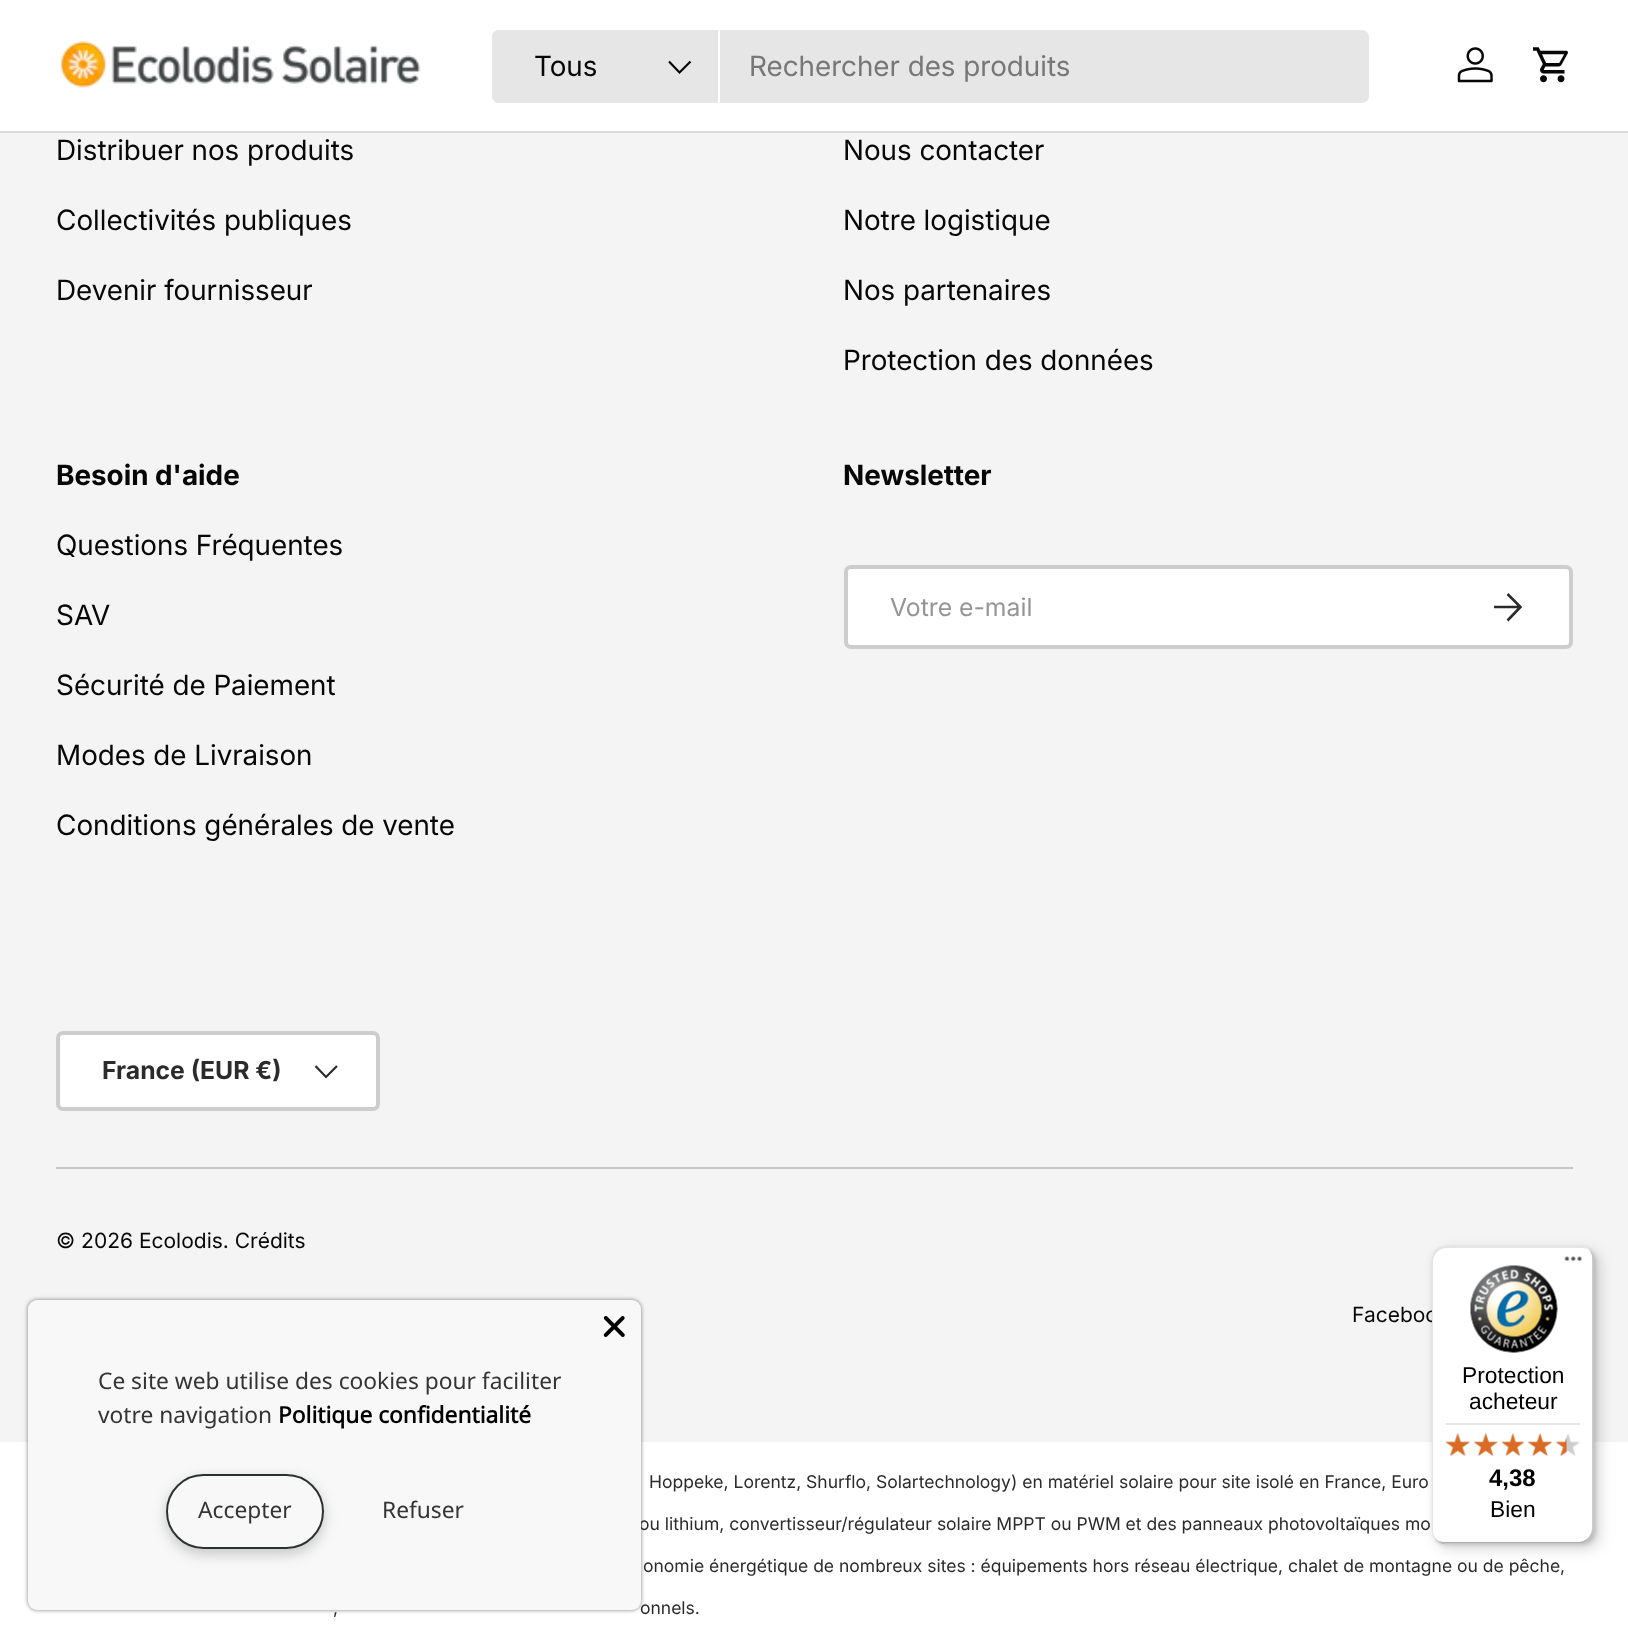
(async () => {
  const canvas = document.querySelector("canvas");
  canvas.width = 1628;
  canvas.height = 1638;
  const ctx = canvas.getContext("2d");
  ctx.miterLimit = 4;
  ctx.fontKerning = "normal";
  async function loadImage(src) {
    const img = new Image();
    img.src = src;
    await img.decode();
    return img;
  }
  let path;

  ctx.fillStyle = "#ffffff";
  ctx.fillRect(0, 0, 1628, 1638);
  ctx.fillStyle = "#dadada";
  ctx.fillRect(0, 131, 1628, 2);
  ctx.drawImage(await loadImage("img/1.png"), 60, 41, 361, 47);
  ctx.fillStyle = "#e6e6e6";
  ctx.beginPath();
  ctx.roundRect(492, 30, 877, 73, 7);
  ctx.fill();
  ctx.beginPath();
  ctx.roundRect(492, 30, 227, 73, [7, 0, 0, 7]);
  ctx.fill();
  ctx.fillStyle = "#ffffff";
  ctx.fillRect(718, 30, 2, 73);
  path = new Path2D("M690.5 61.5L679.5 72.5L669 61.5");
  ctx.strokeStyle = "#070707";
  ctx.lineWidth = 2.2;
  ctx.stroke(path);
  ctx.drawImage(await loadImage("img/2.png"), 1457, 47, 36, 36);
  ctx.drawImage(await loadImage("img/3.png"), 1533, 47, 35, 36);
  ctx.fillStyle = "#f4f4f4";
  ctx.fillRect(0, 133, 1628, 1309);
  ctx.fillStyle = "#ffffff";
  ctx.beginPath();
  ctx.roundRect(844, 565, 729, 84, 7);
  ctx.fill();
  ctx.beginPath();
  ctx.roundRect(846, 567, 725, 80, 5);
  ctx.strokeStyle = "rgba(7, 7, 7, 0.2)";
  ctx.lineWidth = 4;
  ctx.stroke();
  path = new Path2D("M1494 607H1519.5M1507.5 594L1520.5 607L1507.5 620.5");
  ctx.strokeStyle = "#2a2b2a";
  ctx.lineWidth = 2.6;
  ctx.stroke(path);
  ctx.beginPath();
  ctx.roundRect(56, 1031, 324, 80, 7);
  ctx.fill();
  ctx.beginPath();
  ctx.roundRect(58, 1033, 320, 76, 5);
  ctx.strokeStyle = "rgba(7, 7, 7, 0.2)";
  ctx.lineWidth = 4;
  ctx.stroke();
  path = new Path2D("M337 1066L326 1077L315.5 1066");
  ctx.strokeStyle = "#2a2b2a";
  ctx.lineWidth = 2.2;
  ctx.stroke(path);
  ctx.fillStyle = "#c5c5c5";
  ctx.fillRect(56, 1167, 1517, 2);
  ctx.fillStyle = "rgba(0, 0, 0, 0.5)";
  ctx.filter = "blur(2px)";
  ctx.beginPath();
  ctx.roundRect(28, 1300, 613, 310, 9);
  ctx.fill();
  ctx.filter = "none";
  ctx.fillStyle = "rgba(0, 0, 0, 0.15)";
  ctx.filter = "blur(7px)";
  ctx.beginPath();
  ctx.roundRect(1437, 1251, 163, 298, 14);
  ctx.fill();
  ctx.filter = "none";
  ctx.filter = "blur(2px)";
  ctx.beginPath();
  ctx.roundRect(1433, 1248, 163, 297, 14);
  ctx.fill();
  ctx.filter = "none";
  ctx.font = "28px Inter";
  ctx.fillStyle = "#070707";
  ctx.fillText("Tous", 534, 76);
  ctx.fillStyle = "#777777";
  ctx.fillText("Rechercher des produits", 749, 76);
  ctx.fillStyle = "#070707";
  for (const [text, x, y] of [
    ["Distribuer nos produits", 56, 160],
    ["Collectivités publiques", 56, 230],
    ["Devenir fournisseur", 56, 300],
    ["Nous contacter", 843, 160],
    ["Notre logistique", 843, 230],
    ["Nos partenaires", 843, 300],
    ["Protection des données", 843, 370],
  ]) {
    ctx.fillText(text, x, y);
  }
  ctx.font = "bold 28px Inter";
  ctx.fillText("Besoin d'aide", 56, 485);
  ctx.font = "28px Inter";
  for (const [text, x, y] of [
    ["Questions Fréquentes", 56, 555],
    ["SAV", 56, 625],
    ["Sécurité de Paiement", 56, 695],
    ["Modes de Livraison", 56, 765],
    ["Conditions générales de vente", 56, 835],
  ]) {
    ctx.fillText(text, x, y);
  }
  ctx.font = "bold 28px Inter";
  ctx.fillText("Newsletter", 843, 485);
  ctx.font = "24.75px 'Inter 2'";
  ctx.fillStyle = "#959595";
  ctx.fillText("Votre e-mail", 890, 616);
  ctx.font = "bold 24.75px 'Inter 2'";
  ctx.fillStyle = "#2a2b2a";
  ctx.fillText("France (EUR €)", 102, 1079);
  ctx.font = "21px 'Inter 2'";
  ctx.fillStyle = "#070707";
  ctx.fillText("© 2026 Ecolodis. Crédits", 56, 1248);
  ctx.fillText("Faceboo", 1352, 1322);
  ctx.fillStyle = "#ffffff";
  ctx.beginPath();
  ctx.roundRect(1432, 1246, 162, 298, 14);
  ctx.fill();
  ctx.fillStyle = "rgba(0, 0, 0, 0.1)";
  path = new Path2D("M1447 1248H1582C1585 1248 1588 1249 1590 1251C1588 1248 1584 1246 1580 1246H1446C1438 1246 1432 1252 1432 1260V1530C1432 1535 1434 1539 1438 1541C1435 1539 1433 1535 1433 1531V1262C1433 1254 1440 1248 1447 1248Z");
  ctx.fill(path);
  ctx.fillStyle = "rgba(0, 0, 0, 0.2)";
  path = new Path2D("M1435 1538C1437 1542 1441 1544 1446 1544H1580C1588 1544 1594 1538 1594 1530V1260C1594 1255 1592 1251 1588 1249C1591 1251 1592 1255 1592 1258V1528C1592 1535 1586 1542 1578 1542H1444C1440 1542 1437 1541 1435 1538Z");
  ctx.fill(path);
  ctx.fillStyle = "rgba(50, 50, 50, 0.2)";
  path = new Path2D("M1435 1538C1437 1542 1441 1544 1446 1544H1580C1588 1544 1594 1538 1594 1530V1260C1594 1256 1593 1253 1590 1251C1592 1253 1593 1256 1593 1259V1528C1593 1536 1587 1542 1579 1542H1444C1441 1542 1437 1541 1435 1538Z");
  ctx.fill(path);
  ctx.fillStyle = "rgba(255, 255, 255, 0.3)";
  path = new Path2D("M1435 1538C1437 1542 1441 1544 1446 1544H1580C1588 1544 1594 1538 1594 1530V1260C1594 1256 1593 1253 1590 1251C1592 1253 1593 1256 1593 1259V1529C1593 1536 1587 1543 1579 1543H1445C1441 1543 1437 1541 1435 1538Z");
  ctx.fill(path);
  ctx.drawImage(await loadImage("img/5.png"), 1564, 1256, 18, 5);
  ctx.drawImage(await loadImage("img/6.png"), 1470, 1265, 88, 88);
  ctx.font = "22.75px Liberation Sans";
  ctx.fillStyle = "#000000";
  ctx.fillText("Protection", 1462, 1383);
  ctx.fillText("acheteur", 1469, 1409);
  ctx.fillStyle = "#e5e5e5";
  ctx.fillRect(1446, 1423, 134, 2);
  ctx.drawImage(await loadImage("img/12.png"), 1446, 1433, 24, 23);
  ctx.drawImage(await loadImage("img/7.png"), 1445, 1433, 25, 23);
  ctx.drawImage(await loadImage("img/13.png"), 1474, 1433, 24, 23);
  ctx.drawImage(await loadImage("img/8.png"), 1473, 1433, 25, 23);
  ctx.drawImage(await loadImage("img/14.png"), 1501, 1433, 23, 23);
  ctx.drawImage(await loadImage("img/9.png"), 1501, 1433, 24, 23);
  ctx.drawImage(await loadImage("img/15.png"), 1528, 1433, 24, 23);
  ctx.drawImage(await loadImage("img/10.png"), 1527, 1433, 25, 23);
  ctx.drawImage(await loadImage("img/16.png"), 1556, 1433, 24, 23);
  ctx.drawImage(await loadImage("img/11.png"), 1555, 1438, 12, 18);
  ctx.font = "bold 24px Liberation Sans";
  ctx.fillStyle = "#000000";
  ctx.fillText("4,38", 1489, 1486);
  ctx.font = "22.75px Liberation Sans";
  ctx.fillText("Bien", 1490, 1517);
  ctx.font = "17.5px 'Inter 2'";
  ctx.fillStyle = "#2a2b2a";
  for (const [text, x, y] of [
    ["Hoppeke, Lorentz, Shurflo, Solartechnology) en matériel solaire pour site isolé en France, Euro", 649, 1488],
    ["ou lithium, convertisseur/régulateur solaire MPPT ou PWM et des panneaux photovoltaïques mo", 639, 1530],
    ["onomie énergétique de nombreux sites : équipements hors réseau électrique, chalet de montagne ou de pêche,", 643, 1572],
    [",", 333, 1614],
    ["onnels.", 640, 1614],
  ]) {
    ctx.fillText(text, x, y);
  }
  ctx.fillStyle = "#f8f8f8";
  ctx.beginPath();
  ctx.roundRect(28, 1300, 613, 310, 9);
  ctx.fill();
  ctx.drawImage(await loadImage("img/4.png"), 603, 1316, 22, 21);
  ctx.font = "bold 22.75px Noto Sans";
  ctx.fillStyle = "#000000";
  ctx.fillText("Politique confidentialité", 278, 1423);
  ctx.font = "22.75px Noto Sans";
  ctx.fillStyle = "#343434";
  for (const [text, x, y] of [
    ["votre navigation", 98, 1423],
    ["Ce site web utilise des cookies pour faciliter", 98, 1389],
    ["Refuser", 382, 1518],
  ]) {
    ctx.fillText(text, x, y);
  }
  ctx.fillStyle = "rgba(0, 0, 0, 0.2)";
  ctx.filter = "blur(7px)";
  ctx.beginPath();
  ctx.roundRect(166, 1479, 158, 75, 37.5);
  ctx.fill();
  ctx.filter = "none";
  ctx.fillStyle = "#f8f8f8";
  ctx.beginPath();
  ctx.roundRect(167, 1475, 156, 73, 36.5);
  ctx.fill();
  ctx.strokeStyle = "#2c332f";
  ctx.lineWidth = 2;
  ctx.stroke();
  ctx.fillStyle = "#343434";
  ctx.fillText("Accepter", 198, 1518);
})();
